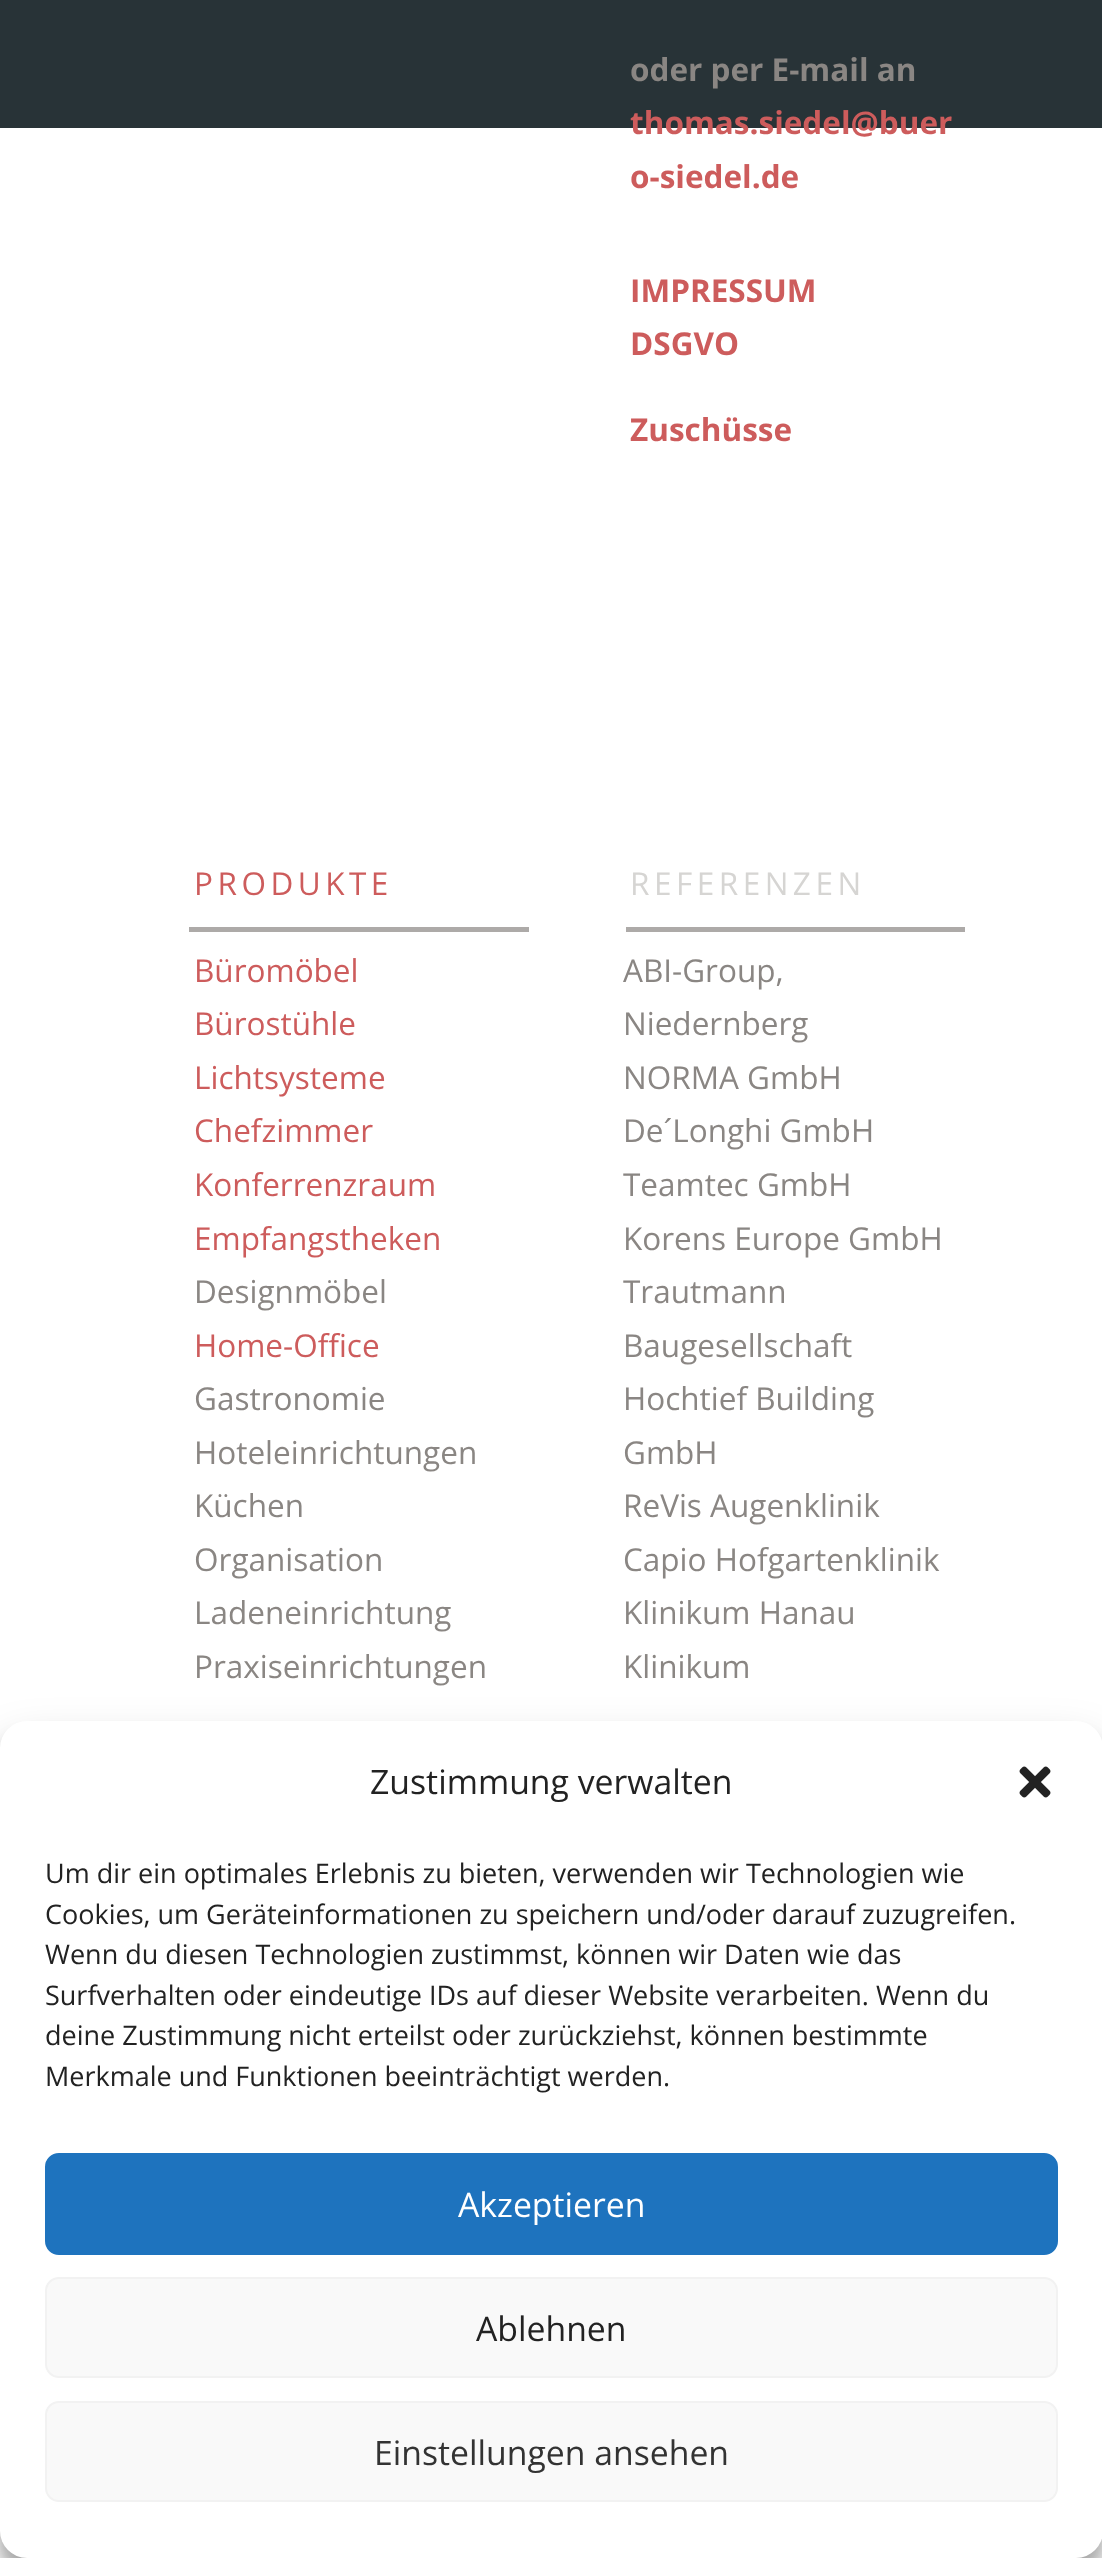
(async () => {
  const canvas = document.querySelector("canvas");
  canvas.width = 1102;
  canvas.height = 2558;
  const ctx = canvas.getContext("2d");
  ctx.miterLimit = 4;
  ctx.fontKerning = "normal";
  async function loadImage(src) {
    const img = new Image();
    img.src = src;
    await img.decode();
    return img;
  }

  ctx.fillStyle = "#ffffff";
  ctx.fillRect(0, 0, 1102, 2558);
  for (const [x, y, w, h, color] of [
    [0, 0, 1102, 128, "#283337"],
    [189, 927, 340, 5, "#adaaa8"],
    [626, 927, 339, 5, "#adaaa8"],
  ]) {
    ctx.fillStyle = color;
    ctx.fillRect(x, y, w, h);
  }
  ctx.fillStyle = "rgba(0, 0, 0, 0.23)";
  ctx.filter = "blur(7px)";
  ctx.beginPath();
  ctx.roundRect(0, 1735, 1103, 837, 27);
  ctx.fill();
  ctx.filter = "none";
  ctx.fillStyle = "rgba(0, 0, 0, 0.19)";
  ctx.filter = "blur(22.5px)";
  ctx.beginPath();
  ctx.roundRect(0, 1744, 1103, 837, 27);
  ctx.fill();
  ctx.filter = "none";
  ctx.fillStyle = "#ffffff";
  ctx.beginPath();
  ctx.roundRect(0, 1721, 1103, 837, 27);
  ctx.fill();
  ctx.drawImage(await loadImage("img/1.png"), 1019, 1766, 32, 32);
  ctx.fillStyle = "#1e73be";
  ctx.beginPath();
  ctx.roundRect(46, 2154, 1011, 100, 13);
  ctx.fill();
  ctx.strokeStyle = "#1e73be";
  ctx.lineWidth = 2;
  ctx.stroke();
  ctx.fillStyle = "#f9f9f9";
  ctx.beginPath();
  ctx.roundRect(46, 2278, 1011, 99, 13);
  ctx.fill();
  ctx.strokeStyle = "#f2f2f2";
  ctx.stroke();
  ctx.beginPath();
  ctx.roundRect(46, 2402, 1011, 99, 13);
  ctx.fill();
  ctx.stroke();
  ctx.font = "bold 31.5px Open Sans";
  ctx.fillStyle = "#8a8683";
  ctx.fillText("oder per E-mail an", 630, 81);
  ctx.fillStyle = "#cd5c5c";
  for (const [text, x, y] of [
    ["thomas.siedel@buer", 630, 134],
    ["o-siedel.de", 630, 188],
    ["IMPRESSUM", 630, 302],
    ["DSGVO", 630, 355],
    ["Zuschüsse", 630, 441],
  ]) {
    ctx.fillText(text, x, y);
  }
  ctx.letterSpacing = "4.5px";
  ctx.font = "31.5px Open Sans";
  ctx.fillText("PRODUKTE", 194, 895);
  ctx.letterSpacing = "0px";
  for (const [text, x, y] of [
    ["Büromöbel", 194, 982],
    ["Bürostühle", 194, 1035],
    ["Lichtsysteme", 194, 1089],
    ["Chefzimmer", 194, 1142],
    ["Konferrenzraum", 194, 1196],
    ["Empfangstheken", 194, 1250],
  ]) {
    ctx.fillText(text, x, y);
  }
  ctx.fillStyle = "#8a8683";
  ctx.fillText("Designmöbel", 194, 1303);
  ctx.fillStyle = "#cd5c5c";
  ctx.fillText("Home-Office", 194, 1357);
  ctx.fillStyle = "#8a8683";
  for (const [text, x, y] of [
    ["Gastronomie", 194, 1410],
    ["Hoteleinrichtungen", 194, 1464],
    ["Küchen", 194, 1517],
    ["Organisation", 194, 1571],
    ["Ladeneinrichtung", 194, 1624],
    ["Praxiseinrichtungen", 194, 1678],
  ]) {
    ctx.fillText(text, x, y);
  }
  ctx.letterSpacing = "4.5px";
  ctx.fillStyle = "#d6d5d3";
  ctx.fillText("REFERENZEN", 630, 895);
  ctx.letterSpacing = "0px";
  ctx.fillStyle = "#8a8683";
  for (const [text, x, y] of [
    ["ABI-Group,", 623, 982],
    ["Niedernberg", 623, 1035],
    ["NORMA GmbH", 623, 1089],
    ["De´Longhi GmbH", 623, 1142],
    ["Teamtec GmbH", 623, 1196],
    ["Korens Europe GmbH", 623, 1250],
    ["Trautmann", 623, 1303],
    ["Baugesellschaft", 623, 1357],
    ["Hochtief Building", 623, 1410],
    ["GmbH", 623, 1464],
    ["ReVis Augenklinik", 623, 1517],
    ["Capio Hofgartenklinik", 623, 1571],
    ["Klinikum Hanau", 623, 1624],
    ["Klinikum", 623, 1678],
  ]) {
    ctx.fillText(text, x, y);
  }
  ctx.font = "33.75px Open Sans";
  ctx.fillStyle = "#222222";
  ctx.fillText("Zustimmung verwalten", 370, 1794);
  ctx.font = "27px Open Sans";
  for (const [text, x, y] of [
    ["Um dir ein optimales Erlebnis zu bieten, verwenden wir Technologien wie", 45, 1883],
    ["Cookies, um Geräteinformationen zu speichern und/oder darauf zuzugreifen.", 45, 1924],
    ["Wenn du diesen Technologien zustimmst, können wir Daten wie das", 45, 1964],
    ["Surfverhalten oder eindeutige IDs auf dieser Website verarbeiten. Wenn du", 45, 2005],
    ["deine Zustimmung nicht erteilst oder zurückziehst, können bestimmte", 45, 2045],
    ["Merkmale und Funktionen beeinträchtigt werden.", 45, 2086],
  ]) {
    ctx.fillText(text, x, y);
  }
  ctx.font = "33.75px Open Sans";
  ctx.fillStyle = "#ffffff";
  ctx.fillText("Akzeptieren", 458, 2217);
  ctx.fillStyle = "#222222";
  ctx.fillText("Ablehnen", 476, 2341);
  ctx.fillStyle = "#333333";
  ctx.fillText("Einstellungen ansehen", 374, 2465);
})();
